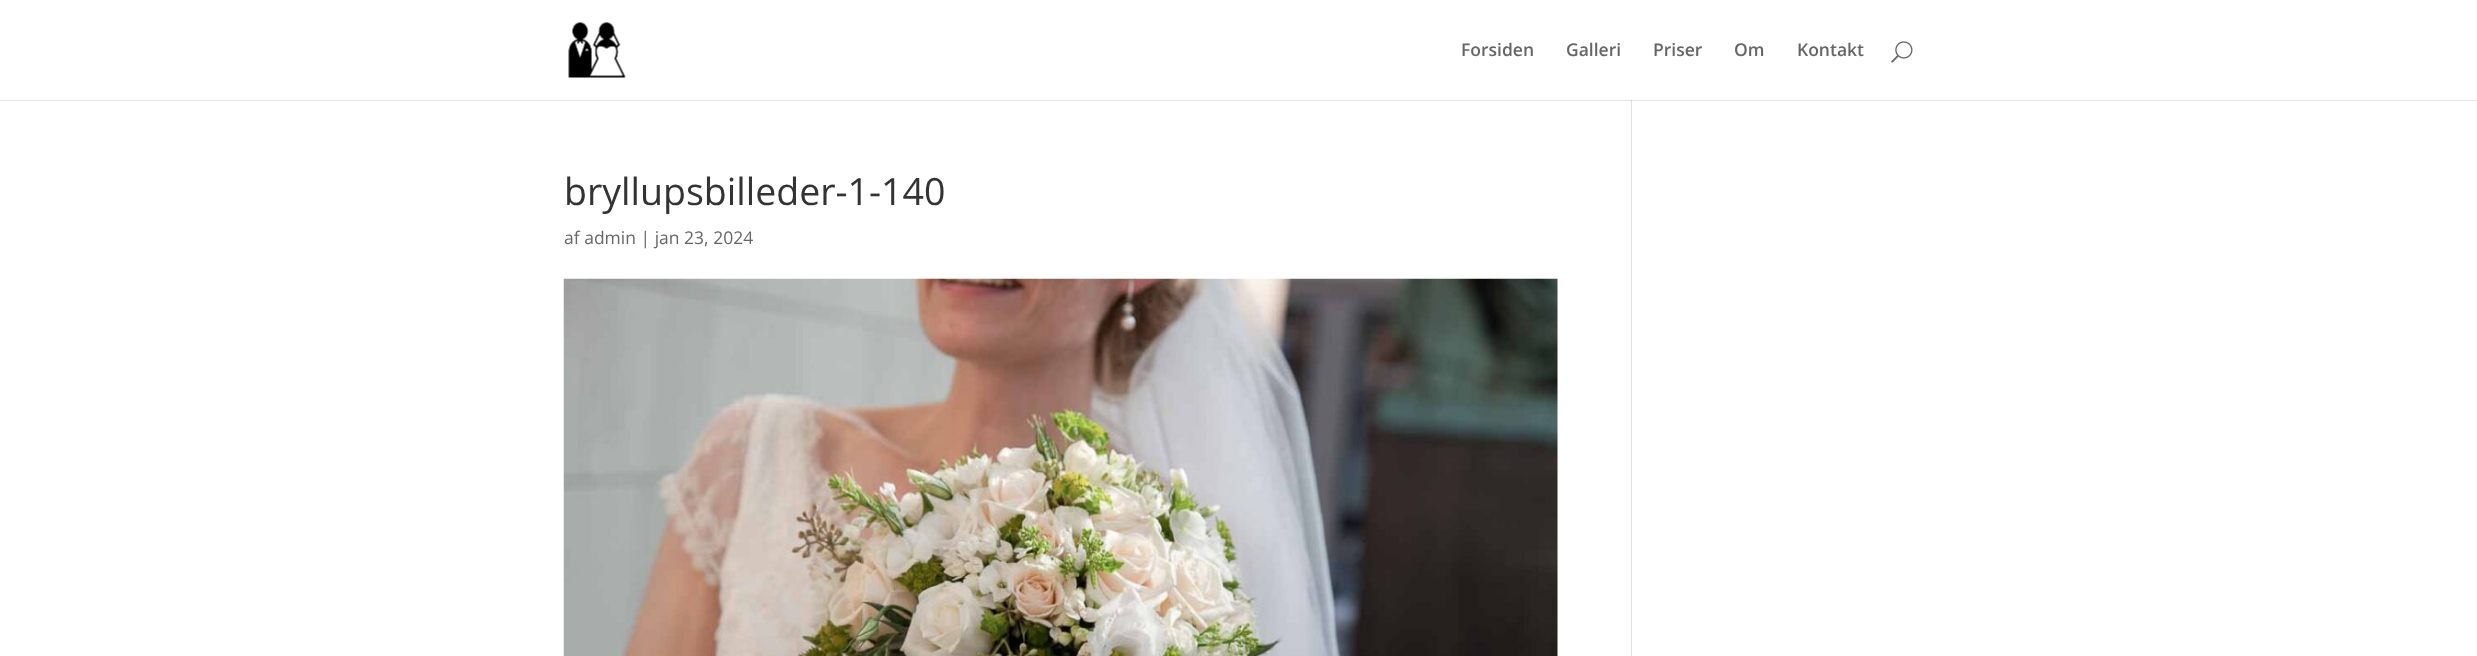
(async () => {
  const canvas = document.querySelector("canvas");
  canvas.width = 2477;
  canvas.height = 656;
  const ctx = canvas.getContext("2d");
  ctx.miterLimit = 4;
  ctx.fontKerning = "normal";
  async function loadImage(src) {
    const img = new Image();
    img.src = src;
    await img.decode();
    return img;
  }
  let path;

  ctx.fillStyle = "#ffffff";
  ctx.fillRect(0, 0, 2477, 656);
  ctx.fillStyle = "#e2e2e2";
  ctx.fillRect(1631, 100, 1, 556);
  ctx.fillStyle = "rgba(0, 0, 0, 0.1)";
  path = new Path2D("M0 100V101H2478V1V100Z");
  ctx.fill(path);
  ctx.drawImage(await loadImage("img/1.png"), 568, 22, 58, 56);
  ctx.drawImage(await loadImage("img/2.png"), 1891, 41, 22, 22);
  ctx.drawImage(await loadImage("img/3.png"), 563, 278, 995, 378);
  ctx.font = "600 17.5px Open Sans";
  ctx.fillStyle = "#666666";
  for (const [text, x, y] of [
    ["Forsiden", 1461, 56],
    ["Galleri", 1566, 56],
    ["Priser", 1653, 56],
    ["Om", 1734, 56],
    ["Kontakt", 1797, 56],
  ]) {
    ctx.fillText(text, x, y);
  }
  ctx.font = "37.5px Open Sans";
  ctx.fillStyle = "#333333";
  ctx.fillText("bryllupsbilleder-1-140", 564, 205);
  ctx.font = "17.5px Open Sans";
  ctx.fillStyle = "#666666";
  ctx.fillText("af admin | jan 23, 2024", 564, 244);
})();
